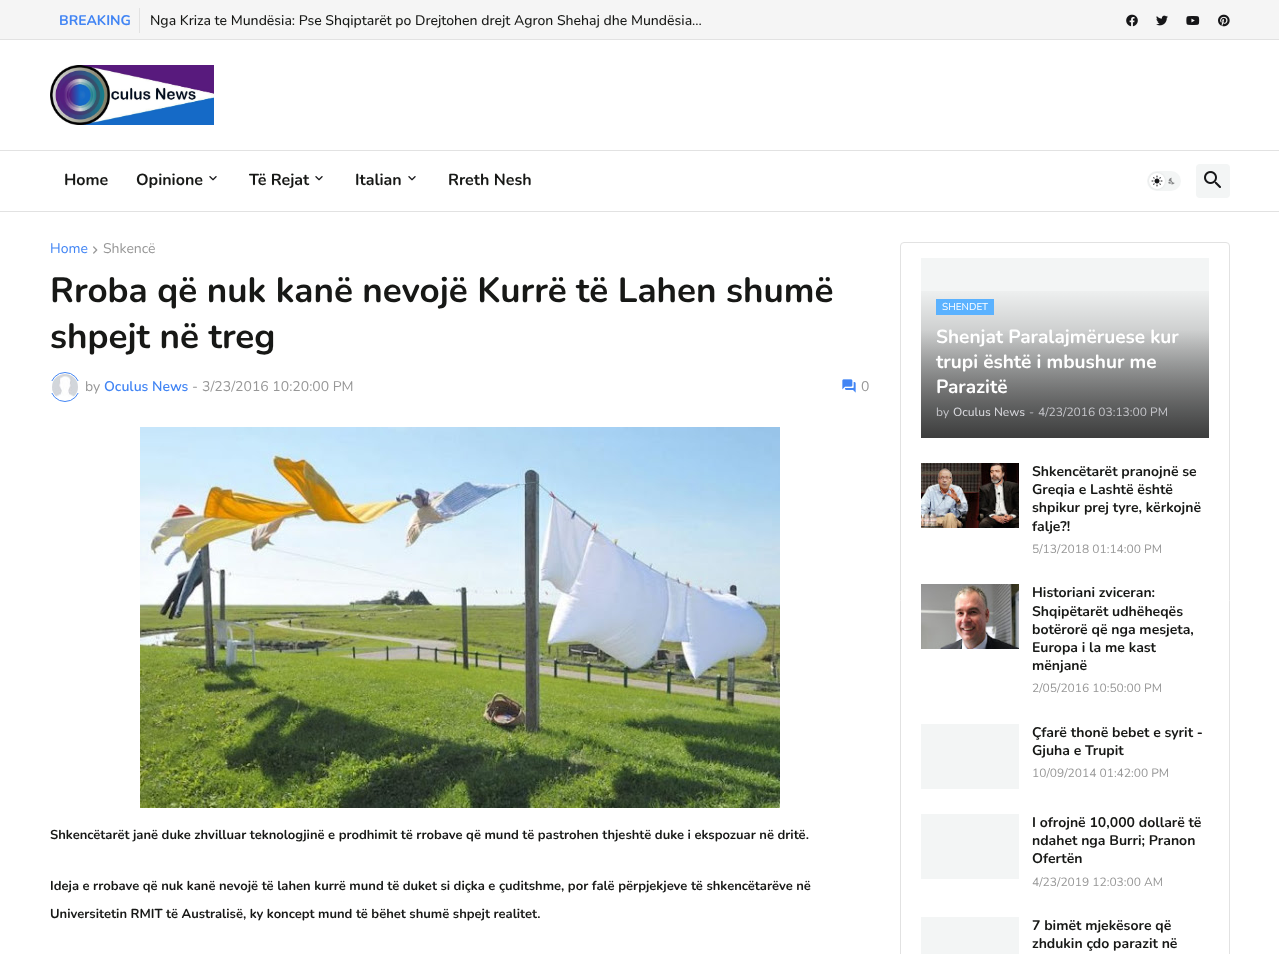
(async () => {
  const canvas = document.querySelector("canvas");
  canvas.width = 1279;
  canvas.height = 954;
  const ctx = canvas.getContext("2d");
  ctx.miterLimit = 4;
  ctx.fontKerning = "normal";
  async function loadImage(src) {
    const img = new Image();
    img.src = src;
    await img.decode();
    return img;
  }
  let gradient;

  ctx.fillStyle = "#ffffff";
  ctx.fillRect(0, 0, 1279, 954);
  for (const [x, y, w, h, color] of [
    [0, 0, 1279, 39, "#f5f5f5"],
    [0, 39, 1279, 1, "#e2e2e2"],
    [139, 8, 1, 25, "#e2e2e2"],
  ]) {
    ctx.fillStyle = color;
    ctx.fillRect(x, y, w, h);
  }
  ctx.drawImage(await loadImage("img/1.png"), 1126, 14, 12, 13);
  ctx.drawImage(await loadImage("img/2.png"), 1156, 15, 12, 11);
  ctx.drawImage(await loadImage("img/3.png"), 1186, 16, 14, 9);
  ctx.drawImage(await loadImage("img/4.png"), 1218, 14, 12, 13);
  ctx.drawImage(await loadImage("img/5.png"), 50, 65, 164, 60);
  ctx.fillRect(0, 150, 1279, 1);
  ctx.fillRect(0, 211, 1279, 1);
  ctx.drawImage(await loadImage("img/6.png"), 209, 176, 8, 5);
  ctx.drawImage(await loadImage("img/6.png"), 315, 176, 8, 5);
  ctx.drawImage(await loadImage("img/6.png"), 408, 176, 8, 5);
  ctx.fillStyle = "#f3f5f5";
  ctx.beginPath();
  ctx.roundRect(1147, 171, 34, 20, 10);
  ctx.fill();
  ctx.drawImage(await loadImage("img/8.png"), 1168, 177, 7, 8);
  ctx.fillStyle = "rgba(0, 0, 0, 0.1)";
  ctx.filter = "blur(1px)";
  ctx.beginPath();
  ctx.roundRect(1149, 173, 16, 16, 8);
  ctx.fill();
  ctx.filter = "none";
  ctx.fillStyle = "#ffffff";
  ctx.beginPath();
  ctx.arc(1157, 181, 8, 0, Math.PI * 2);
  ctx.fill();
  ctx.drawImage(await loadImage("img/7.png"), 1151, 175, 12, 12);
  ctx.fillStyle = "#f3f5f5";
  ctx.beginPath();
  ctx.roundRect(1196, 164, 34, 34, 4);
  ctx.fill();
  ctx.drawImage(await loadImage("img/9.png"), 1204, 171, 17, 17);
  ctx.drawImage(await loadImage("img/10.png"), 93, 246, 5, 8);
  ctx.beginPath();
  ctx.arc(65, 387, 14.5, 0, Math.PI * 2);
  ctx.strokeStyle = "#4285f4";
  ctx.stroke();
  ctx.fillStyle = "#ffffff";
  ctx.fillRect(50, 381, 30, 12);
  ctx.drawImage(await loadImage("img/11.png"), 52, 374, 26, 23);
  ctx.drawImage(await loadImage("img/12.png"), 842, 379, 14, 14);
  ctx.drawImage(await loadImage("img/13.png"), 140, 427, 640, 381);
  ctx.beginPath();
  ctx.roundRect(900.5, 242.5, 329, 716, 3.5);
  ctx.strokeStyle = "#e2e2e2";
  ctx.stroke();
  ctx.fillStyle = "#f3f5f5";
  ctx.fillRect(921, 258, 288, 36);
  gradient = ctx.createLinearGradient(1065, 294, 1065, 438);
  gradient.addColorStop(0.25, "#f3f5f5");
  gradient.addColorStop(1, "#7a7b7b");
  ctx.fillStyle = gradient;
  ctx.fillRect(921, 294, 288, 144);
  gradient = ctx.createLinearGradient(1065, 284, 1065, 438);
  gradient.addColorStop(0, "rgba(0, 0, 0, 0)");
  gradient.addColorStop(1, "rgba(0, 0, 0, 0.5)");
  ctx.fillStyle = gradient;
  ctx.fillRect(921, 291, 288, 147);
  ctx.fillStyle = "#5bb2ff";
  ctx.fillRect(936, 299, 58, 16);
  ctx.drawImage(await loadImage("img/14.png"), 921, 463, 98, 65);
  ctx.drawImage(await loadImage("img/15.png"), 921, 584, 98, 65);
  for (const [x, y, w, h, color] of [
    [921, 724, 98, 65, "#f3f5f5"],
    [921, 814, 98, 65, "#f3f5f5"],
    [921, 917, 98, 37, "#f3f5f5"],
  ]) {
    ctx.fillStyle = color;
    ctx.fillRect(x, y, w, h);
  }
  ctx.font = "bold 14px Nunito";
  ctx.fillStyle = "#4285f4";
  ctx.fillText("BREAKING", 59, 25);
  ctx.font = "500 14px Nunito";
  ctx.fillStyle = "#171816";
  ctx.fillText("Nga Kriza te Mundësia: Pse Shqiptarët po Drejtohen drejt Agron Shehaj dhe Mundësia...", 150, 25);
  ctx.font = "bold 16px Nunito";
  for (const [text, x, y] of [
    ["Home", 64, 185],
    ["Opinione", 136, 185],
    ["Të Rejat", 249, 185],
    ["Italian", 355, 185],
    ["Rreth Nesh", 448, 185],
  ]) {
    ctx.fillText(text, x, y);
  }
  ctx.font = "14px Nunito";
  ctx.fillStyle = "#4285f4";
  ctx.fillText("Home", 50, 253);
  ctx.fillStyle = "#979797";
  ctx.fillText("Shkencë", 103, 253);
  ctx.font = "bold 35px Nunito";
  ctx.fillStyle = "#171816";
  ctx.fillText("Rroba që nuk kanë nevojë Kurrë të Lahen shumë", 50, 302);
  ctx.fillText("shpejt në treg", 50, 348);
  ctx.font = "14px Nunito";
  ctx.fillStyle = "#979797";
  ctx.fillText("by", 85, 391);
  ctx.font = "600 14px Nunito";
  ctx.fillStyle = "#4285f4";
  ctx.fillText("Oculus News", 104, 391);
  ctx.font = "14px Nunito";
  ctx.fillStyle = "#979797";
  for (const [text, x, y] of [
    ["-", 192, 391],
    ["3/23/2016 10:20:00 PM", 202, 391],
    ["0", 861, 391],
  ]) {
    ctx.fillText(text, x, y);
  }
  ctx.font = "bold 13px Nunito";
  ctx.fillStyle = "#171816";
  for (const [text, x, y] of [
    ["Shkencëtarët janë duke zhvilluar teknologjinë e prodhimit të rrobave që mund të pastrohen thjeshtë duke i ekspozuar në dritë.", 50, 839],
    ["Ideja e rrobave që nuk kanë nevojë të lahen kurrë mund të duket si diçka e çuditshme, por falë përpjekjeve të shkencëtarëve në", 50, 890],
    ["Universitetin RMIT të Australisë, ky koncept mund të bëhet shumë shpejt realitet.", 50, 918],
  ]) {
    ctx.fillText(text, x, y);
  }
  ctx.font = "10px Nunito";
  ctx.fillStyle = "#ffffff";
  ctx.fillText("SHENDET", 942, 310);
  ctx.font = "bold 19px Nunito";
  for (const [text, x, y] of [
    ["Shenjat Paralajmëruese kur", 936, 343],
    ["trupi është i mbushur me", 936, 368],
    ["Parazitë", 936, 393],
  ]) {
    ctx.fillText(text, x, y);
  }
  ctx.font = "12px Nunito";
  ctx.fillStyle = "#c5c5ca";
  ctx.fillText("by", 936, 416);
  ctx.font = "500 12px Nunito";
  ctx.fillStyle = "#d5d5da";
  ctx.fillText("Oculus News", 953, 416);
  ctx.font = "12px Nunito";
  ctx.fillStyle = "#c5c5ca";
  ctx.fillText("-", 1029, 416);
  ctx.fillText("4/23/2016 03:13:00 PM", 1038, 416);
  ctx.font = "bold 14px Nunito";
  ctx.fillStyle = "#171816";
  for (const [text, x, y] of [
    ["Shkencëtarët pranojnë se", 1032, 476],
    ["Greqia e Lashtë është", 1032, 494],
    ["shpikur prej tyre, kërkojnë", 1032, 512],
    ["falje?!", 1032, 531],
  ]) {
    ctx.fillText(text, x, y);
  }
  ctx.font = "12px Nunito";
  ctx.fillStyle = "#979797";
  ctx.fillText("5/13/2018 01:14:00 PM", 1032, 553);
  ctx.font = "bold 14px Nunito";
  ctx.fillStyle = "#171816";
  for (const [text, x, y] of [
    ["Historiani zviceran:", 1032, 597],
    ["Shqipëtarët udhëheqës", 1032, 616],
    ["botërorë që nga mesjeta,", 1032, 634],
    ["Europa i la me kast", 1032, 652],
    ["mënjanë", 1032, 670],
  ]) {
    ctx.fillText(text, x, y);
  }
  ctx.font = "12px Nunito";
  ctx.fillStyle = "#979797";
  ctx.fillText("2/05/2016 10:50:00 PM", 1032, 692);
  ctx.font = "bold 14px Nunito";
  ctx.fillStyle = "#171816";
  ctx.fillText("Çfarë thonë bebet e syrit -", 1032, 737);
  ctx.fillText("Gjuha e Trupit", 1032, 755);
  ctx.font = "12px Nunito";
  ctx.fillStyle = "#979797";
  ctx.fillText("10/09/2014 01:42:00 PM", 1032, 777);
  ctx.font = "bold 14px Nunito";
  ctx.fillStyle = "#171816";
  for (const [text, x, y] of [
    ["I ofrojnë 10,000 dollarë të", 1032, 827],
    ["ndahet nga Burri; Pranon", 1032, 845],
    ["Ofertën", 1032, 863],
  ]) {
    ctx.fillText(text, x, y);
  }
  ctx.font = "12px Nunito";
  ctx.fillStyle = "#979797";
  ctx.fillText("4/23/2019 12:03:00 AM", 1032, 886);
  ctx.font = "bold 14px Nunito";
  ctx.fillStyle = "#171816";
  ctx.fillText("7 bimët mjekësore që", 1032, 930);
  ctx.fillText("zhdukin çdo parazit në", 1032, 948);
})();
